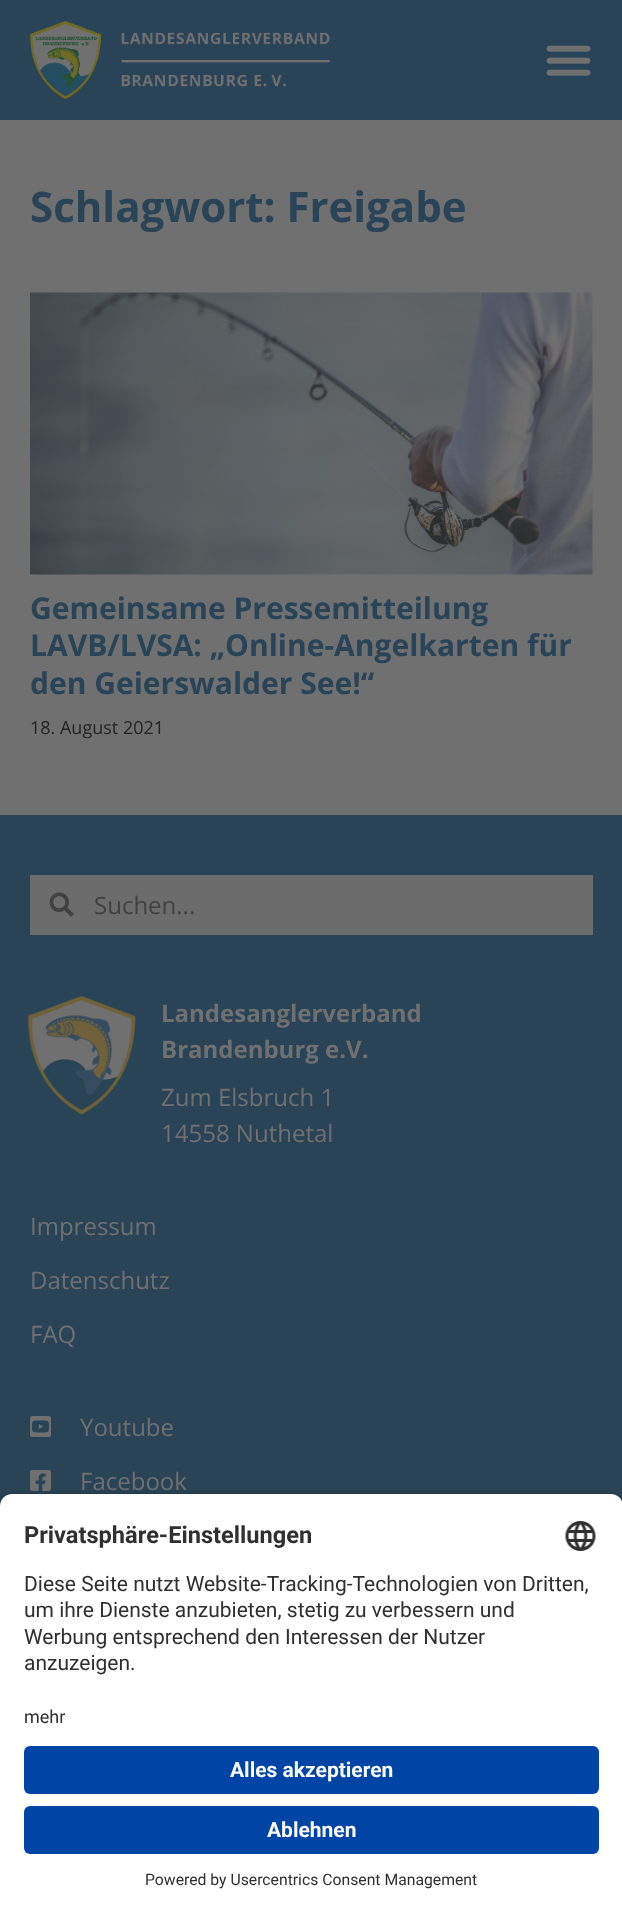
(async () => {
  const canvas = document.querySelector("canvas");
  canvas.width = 622;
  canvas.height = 1914;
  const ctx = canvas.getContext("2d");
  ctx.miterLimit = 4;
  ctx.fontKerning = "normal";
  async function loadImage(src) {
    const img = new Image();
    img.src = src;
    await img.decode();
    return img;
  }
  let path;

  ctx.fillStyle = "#707070";
  ctx.fillRect(0, 0, 622, 1914);
  ctx.fillStyle = "#294456";
  ctx.fillRect(0, 0, 622, 120);
  ctx.drawImage(await loadImage("img/1.png"), 30, 20, 300, 79);
  ctx.drawImage(await loadImage("img/2.png"), 546, 45, 45, 31);
  ctx.drawImage(await loadImage("img/3.png"), 30, 292, 563, 283);
  ctx.fillRect(0, 815, 622, 691);
  ctx.fillStyle = "#6c6c6d";
  ctx.fillRect(30, 875, 563, 60);
  ctx.drawImage(await loadImage("img/4.png"), 49, 892, 25, 25);
  ctx.drawImage(await loadImage("img/5.png"), 27, 995, 109, 120);
  ctx.drawImage(await loadImage("img/6.png"), 30, 1416, 21, 21);
  ctx.drawImage(await loadImage("img/7.png"), 30, 1470, 21, 21);
  ctx.fillStyle = "rgba(0, 0, 0, 0.8)";
  ctx.filter = "blur(5px)";
  ctx.beginPath();
  ctx.roundRect(0, 1499, 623, 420, 12);
  ctx.fill();
  ctx.filter = "none";
  ctx.fillStyle = "#ffffff";
  path = new Path2D("M12 1494H611C617.5 1494 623 1499.5 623 1506V1707H0V1506C0 1499.5 5.5 1494 12 1494Z");
  ctx.fill(path);
  ctx.drawImage(await loadImage("img/8.png"), 565, 1521, 31, 30);
  ctx.fillRect(0, 1707, 622, 207);
  ctx.fillStyle = "#0045a5";
  ctx.beginPath();
  ctx.roundRect(24, 1746, 575, 48, 6);
  ctx.fill();
  ctx.beginPath();
  ctx.roundRect(24, 1806, 575, 48, 6);
  ctx.fill();
  ctx.font = "bold 42px Open Sans";
  ctx.fillStyle = "#294456";
  ctx.fillText("Schlagwort: Freigabe", 30, 222);
  ctx.font = "bold 30px Open Sans";
  for (const [text, x, y] of [
    ["Gemeinsame Pressemitteilung", 30, 619],
    ["LAVB/LVSA: „Online-Angelkarten für", 30, 656],
    ["den Geierswalder See!“", 30, 694],
  ]) {
    ctx.fillText(text, x, y);
  }
  ctx.font = "18px Open Sans";
  ctx.fillStyle = "#242424";
  ctx.fillText("18. August 2021", 30, 734);
  ctx.font = "24px Open Sans";
  ctx.fillStyle = "#414141";
  ctx.fillText("Suchen...", 94, 914);
  ctx.font = "bold 24px Open Sans";
  ctx.fillStyle = "#707070";
  ctx.fillText("Landesanglerverband", 161, 1022);
  ctx.fillText("Brandenburg e.V.", 161, 1058);
  ctx.font = "24px Open Sans";
  for (const [text, x, y] of [
    ["Zum Elsbruch 1", 161, 1106],
    ["14558 Nuthetal", 161, 1142],
    ["Impressum", 30, 1235],
    ["Datenschutz", 30, 1289],
    ["FAQ", 30, 1343],
    ["Youtube", 80, 1436],
    ["Facebook", 80, 1490],
  ]) {
    ctx.fillText(text, x, y);
  }
  ctx.font = "bold 23.6px Roboto";
  ctx.fillStyle = "#303030";
  ctx.fillText("Privatsphäre-Einstellungen", 24, 1543);
  ctx.font = "21px Roboto";
  for (const [text, x, y] of [
    ["Diese Seite nutzt Website-Tracking-Technologien von Dritten,", 24, 1591],
    ["um ihre Dienste anzubieten, stetig zu verbessern und", 24, 1617],
    ["Werbung entsprechend den Interessen der Nutzer", 24, 1644],
    ["anzuzeigen.", 24, 1670],
  ]) {
    ctx.fillText(text, x, y);
  }
  ctx.font = "18px Roboto";
  ctx.fillText("mehr", 24, 1723);
  ctx.font = "bold 21px Roboto";
  ctx.fillStyle = "#fafafa";
  ctx.fillText("Alles akzeptieren", 230, 1777);
  ctx.fillText("Ablehnen", 267, 1837);
  ctx.font = "15.75px Roboto";
  ctx.fillStyle = "#303030";
  ctx.fillText("Powered by Usercentrics Consent Management", 145, 1885);
})();
